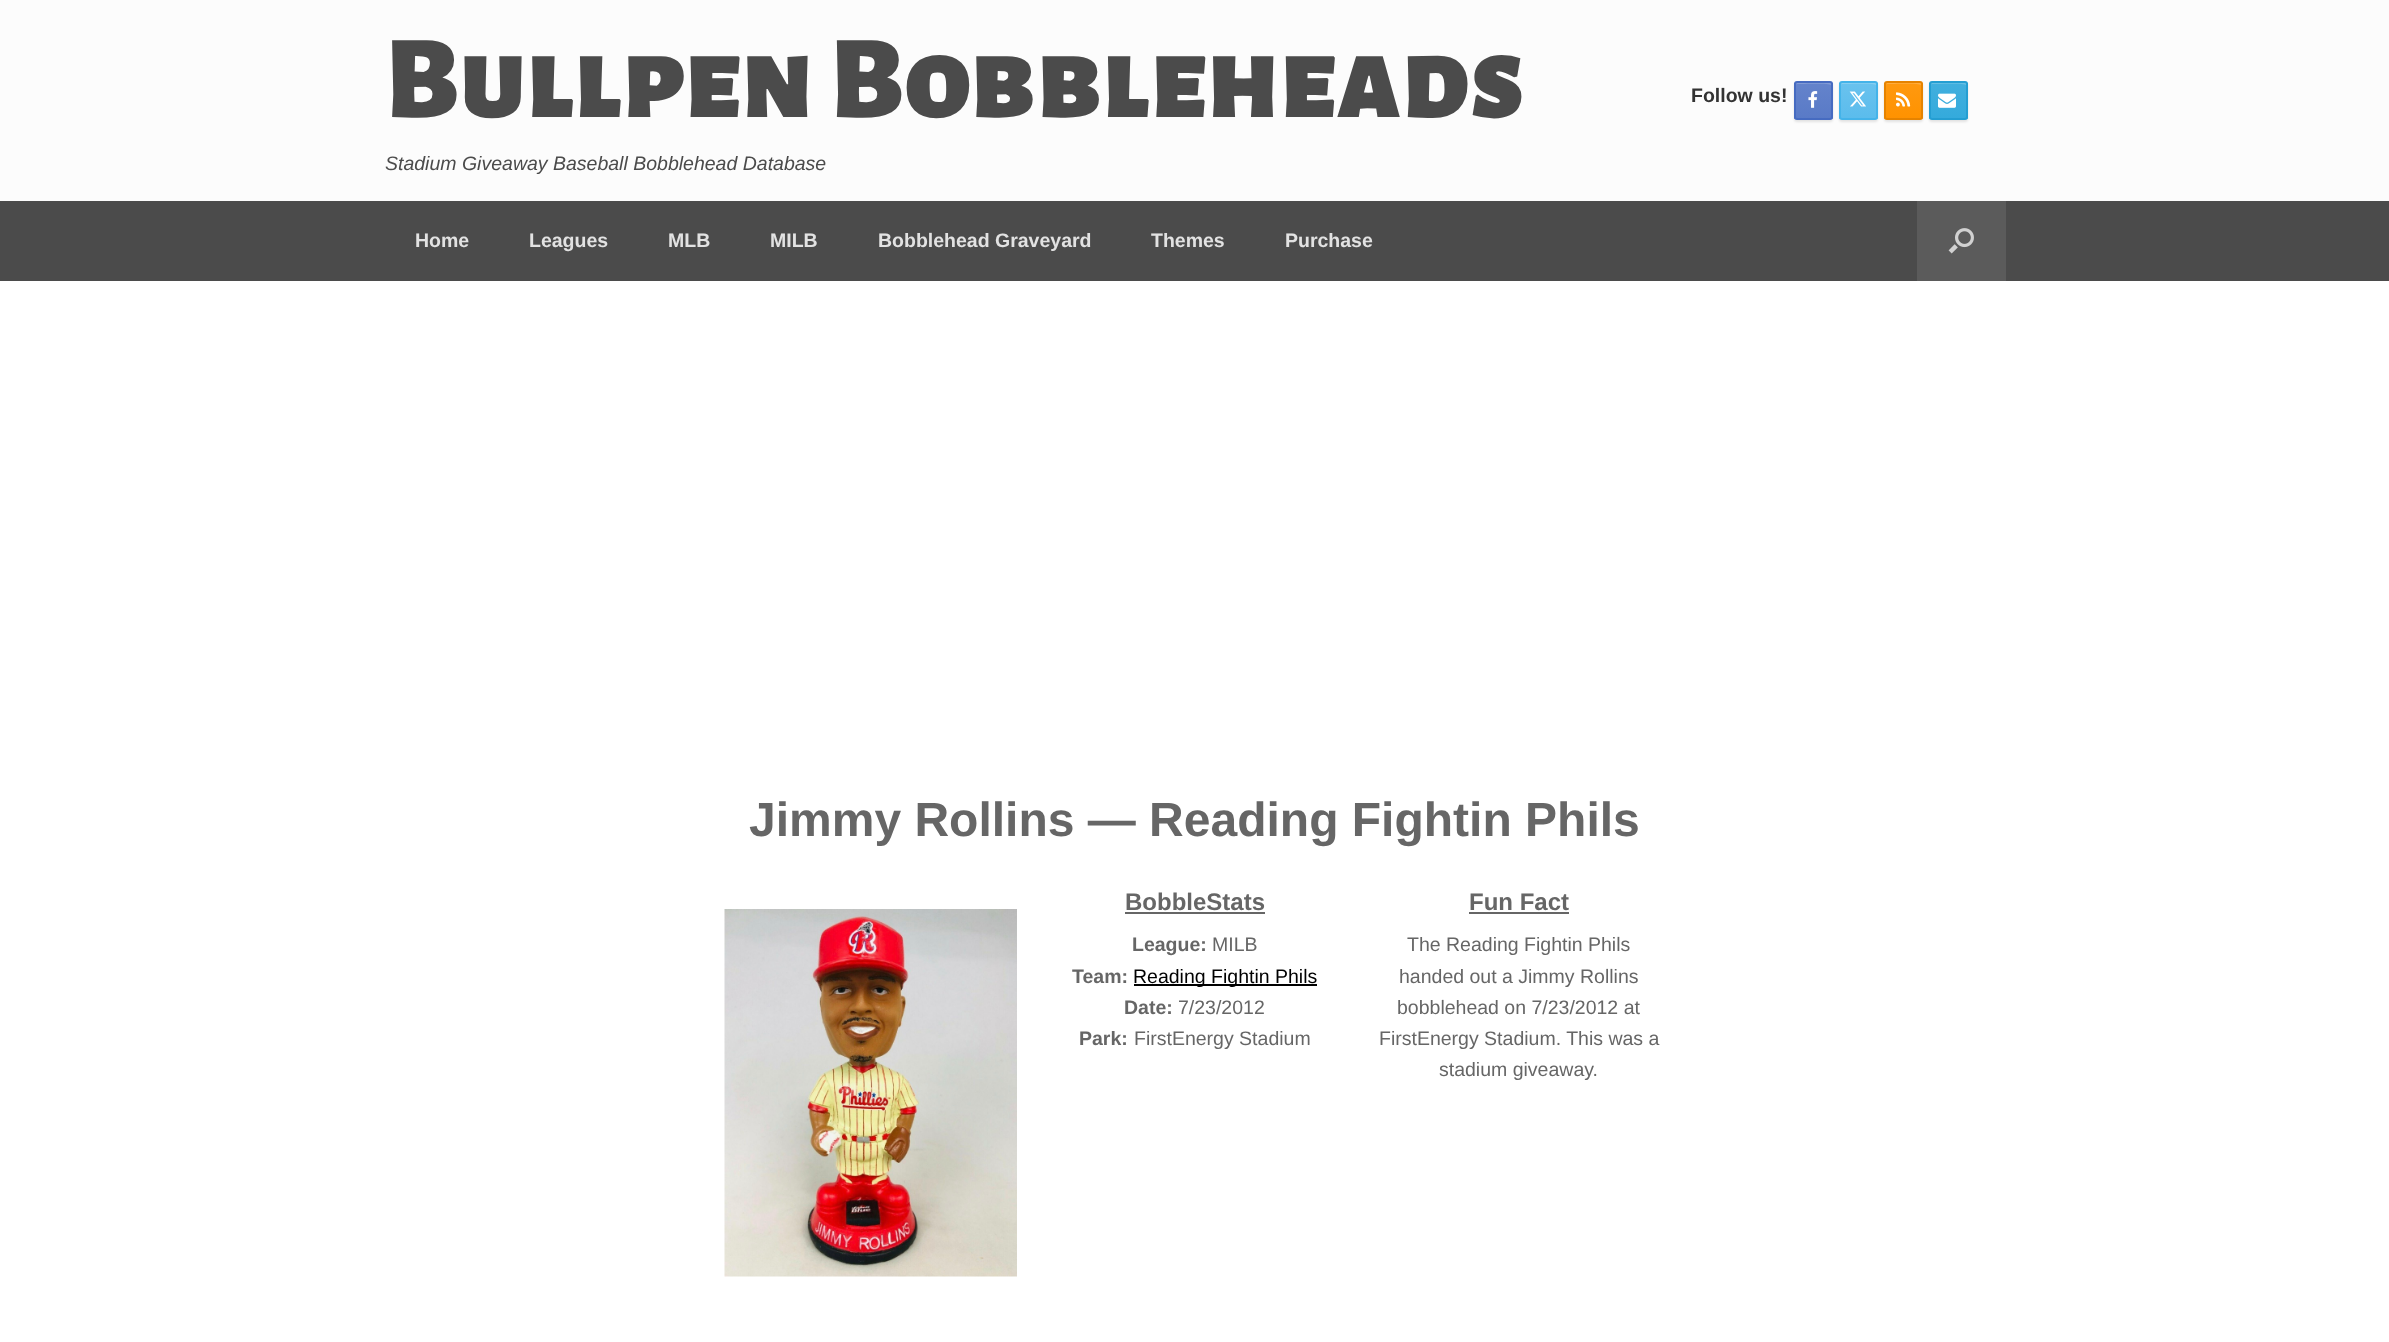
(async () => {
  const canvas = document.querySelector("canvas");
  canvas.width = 2389;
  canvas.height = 1342;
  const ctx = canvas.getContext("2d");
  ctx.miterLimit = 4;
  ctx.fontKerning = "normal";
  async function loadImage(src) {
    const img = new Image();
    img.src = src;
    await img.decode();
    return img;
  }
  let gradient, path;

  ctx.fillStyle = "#fcfcfc";
  ctx.fillRect(0, 0, 2389, 1342);
  ctx.fillStyle = "rgba(0, 0, 0, 0.1)";
  ctx.filter = "blur(1px)";
  ctx.beginPath();
  ctx.roundRect(1794, 83, 39, 39, 3);
  ctx.fill();
  ctx.filter = "none";
  ctx.save();
  ctx.beginPath();
  ctx.roundRect(1794, 81, 39, 39, 3);
  ctx.clip();
  gradient = ctx.createLinearGradient(1814, 119, 1814, 83);
  gradient.addColorStop(0, "#597ac7");
  gradient.addColorStop(1, "#6483cb");
  ctx.fillStyle = gradient;
  ctx.fillRect(1794, 83, 39, 36);
  ctx.restore();
  ctx.fillStyle = "rgba(255, 255, 255, 0.2)";
  path = new Path2D("M1797 84C1803 84 1830 83 1831 85L1832 102V87.5C1832 81.5 1831.5 83 1825 83H1803C1802 83 1796 81.5 1796 84.5Z");
  ctx.fill(path);
  ctx.beginPath();
  ctx.roundRect(1795, 82, 37, 37, 2);
  ctx.strokeStyle = "#466bc1";
  ctx.lineWidth = 2;
  ctx.stroke();
  ctx.drawImage(await loadImage("img/1.png"), 1808, 91, 10, 17);
  ctx.fillStyle = "rgba(0, 0, 0, 0.1)";
  ctx.filter = "blur(1px)";
  ctx.beginPath();
  ctx.roundRect(1839, 83, 39, 39, 3);
  ctx.fill();
  ctx.filter = "none";
  ctx.save();
  ctx.beginPath();
  ctx.roundRect(1839, 81, 39, 39, 3);
  ctx.clip();
  gradient = ctx.createLinearGradient(1859, 119, 1859, 83);
  gradient.addColorStop(0, "#5bbcec");
  gradient.addColorStop(1, "#69c2ee");
  ctx.fillStyle = gradient;
  ctx.fillRect(1839, 83, 39, 36);
  ctx.restore();
  ctx.fillStyle = "rgba(255, 255, 255, 0.2)";
  path = new Path2D("M1842 84C1848.5 84 1875.5 83 1876 85L1876.5 111C1876.5 113.5 1877 116.5 1876 119C1876.5 118.5 1877 118 1877 117.5V84.5C1877 83.5 1876.5 83 1875.5 83H1842.5C1841.5 83 1841 83.5 1841 84.5Z");
  ctx.fill(path);
  ctx.beginPath();
  ctx.roundRect(1840, 82, 37, 37, 2);
  ctx.strokeStyle = "#44b3e9";
  ctx.stroke();
  ctx.drawImage(await loadImage("img/2.png"), 1849, 91, 17, 16);
  ctx.fillStyle = "rgba(0, 0, 0, 0.1)";
  ctx.filter = "blur(1px)";
  ctx.beginPath();
  ctx.roundRect(1884, 83, 39, 39, 3);
  ctx.fill();
  ctx.filter = "none";
  ctx.save();
  ctx.beginPath();
  ctx.roundRect(1884, 81, 39, 39, 3);
  ctx.clip();
  gradient = ctx.createLinearGradient(1904, 119, 1904, 83);
  gradient.addColorStop(0, "#ff9200");
  gradient.addColorStop(1, "#ff990f");
  ctx.fillStyle = gradient;
  ctx.fillRect(1884, 83, 39, 36);
  ctx.restore();
  ctx.fillStyle = "rgba(255, 255, 255, 0.2)";
  path = new Path2D("M1887 84C1893 84 1920 83 1921 85L1922 102V87.5C1922 81.5 1921.5 83 1915 83H1893C1892 83 1886 81.5 1886 84.5Z");
  ctx.fill(path);
  ctx.beginPath();
  ctx.roundRect(1885, 82, 37, 37, 2);
  ctx.strokeStyle = "#e68300";
  ctx.stroke();
  ctx.drawImage(await loadImage("img/3.png"), 1896, 92, 15, 15);
  ctx.fillStyle = "rgba(0, 0, 0, 0.1)";
  ctx.filter = "blur(1px)";
  ctx.beginPath();
  ctx.roundRect(1929, 83, 39, 39, 3);
  ctx.fill();
  ctx.filter = "none";
  ctx.save();
  ctx.beginPath();
  ctx.roundRect(1929, 81, 39, 39, 3);
  ctx.clip();
  gradient = ctx.createLinearGradient(1949, 119, 1949, 83);
  gradient.addColorStop(0, "#34aadc");
  gradient.addColorStop(1, "#41afde");
  ctx.fillStyle = gradient;
  ctx.fillRect(1929, 83, 39, 36);
  ctx.restore();
  ctx.fillStyle = "rgba(255, 255, 255, 0.2)";
  path = new Path2D("M1932 84C1938.5 84 1965.5 83 1966 85L1966.5 111C1966.5 113.5 1967 116.5 1966 119C1966.5 118.5 1967 118 1967 117.5V84.5C1967 83.5 1966.5 83 1965.5 83H1932.5C1931.5 83 1931 83.5 1931 84.5Z");
  ctx.fill(path);
  ctx.beginPath();
  ctx.roundRect(1930, 82, 37, 37, 2);
  ctx.strokeStyle = "#249ed2";
  ctx.stroke();
  ctx.drawImage(await loadImage("img/4.png"), 1938, 93, 18, 15);
  ctx.fillStyle = "#4b4b4b";
  ctx.fillRect(0, 201, 2389, 80);
  ctx.fillStyle = "#5b5b5b";
  ctx.fillRect(1917, 201, 89, 80);
  ctx.drawImage(await loadImage("img/5.png"), 1948, 228, 26, 26);
  ctx.fillStyle = "#ffffff";
  ctx.fillRect(0, 281, 2389, 1061);
  ctx.drawImage(await loadImage("img/6.png"), 724, 909, 293, 368);
  for (const [x, y, w, h, color] of [
    [1125, 912, 140, 2, "#666666"],
    [1134, 984, 183, 2, "#000000"],
    [1469, 912, 100, 2, "#666666"],
  ]) {
    ctx.fillStyle = color;
    ctx.fillRect(x, y, w, h);
  }
  ctx.font = "900 118.5px Alegreya Sans SC";
  ctx.fillStyle = "#4b4b4b";
  ctx.fillText("Bullpen Bobbleheads", 385, 117);
  ctx.font = "italic 19.5px Liberation Sans";
  ctx.fillText("Stadium Giveaway Baseball Bobblehead Database", 385, 170);
  ctx.font = "bold 19.5px Liberation Sans";
  ctx.fillStyle = "#333333";
  ctx.fillText("Follow us!", 1691, 102);
  ctx.fillStyle = "#e2e2e2";
  for (const [text, x, y] of [
    ["Home", 415, 247],
    ["Leagues", 529, 247],
    ["MLB", 668, 247],
    ["MILB", 770, 247],
    ["Bobblehead Graveyard", 878, 247],
    ["Themes", 1151, 247],
    ["Purchase", 1285, 247],
  ]) {
    ctx.fillText(text, x, y);
  }
  ctx.font = "bold 48px Liberation Sans";
  ctx.fillStyle = "#666666";
  ctx.fillText("Jimmy Rollins — Reading Fightin Phils", 749, 836);
  ctx.font = "bold 24px Liberation Sans";
  ctx.fillText("BobbleStats", 1125, 910);
  ctx.font = "bold 19.5px Liberation Sans";
  ctx.fillText("League:", 1132, 951);
  ctx.font = "19.5px Liberation Sans";
  ctx.fillText("MILB", 1212, 951);
  ctx.font = "bold 19.5px Liberation Sans";
  ctx.fillText("Team:", 1072, 983);
  ctx.font = "19.5px Liberation Sans";
  ctx.fillStyle = "#000000";
  ctx.fillText("Reading Fightin Phils", 1133, 983);
  ctx.font = "bold 19.5px Liberation Sans";
  ctx.fillStyle = "#666666";
  ctx.fillText("Date:", 1124, 1014);
  ctx.font = "19.5px Liberation Sans";
  ctx.fillText("7/23/2012", 1178, 1014);
  ctx.font = "bold 19.5px Liberation Sans";
  ctx.fillText("Park:", 1079, 1045);
  ctx.font = "19.5px Liberation Sans";
  ctx.fillText("FirstEnergy Stadium", 1134, 1045);
  ctx.font = "bold 24px Liberation Sans";
  ctx.fillText("Fun Fact", 1469, 910);
  ctx.font = "19.5px Liberation Sans";
  for (const [text, x, y] of [
    ["The Reading Fightin Phils", 1407, 951],
    ["handed out a Jimmy Rollins", 1399, 983],
    ["bobblehead on 7/23/2012 at", 1397, 1014],
    ["FirstEnergy Stadium. This was a", 1379, 1045],
    ["stadium giveaway.", 1439, 1076],
  ]) {
    ctx.fillText(text, x, y);
  }
})();
